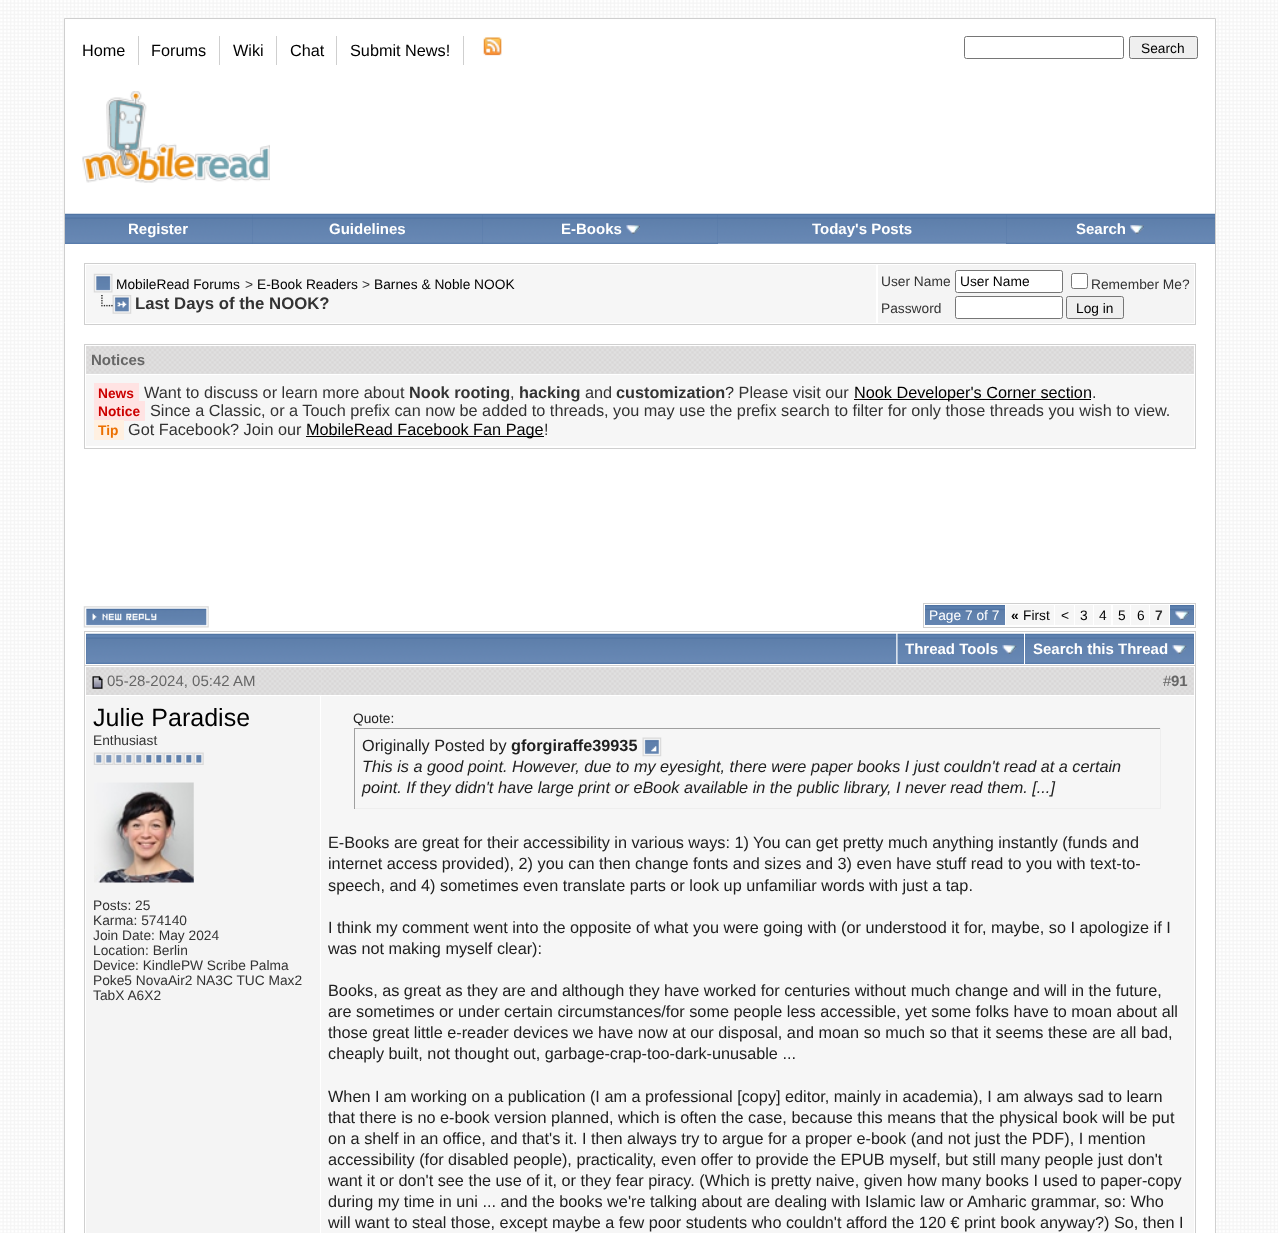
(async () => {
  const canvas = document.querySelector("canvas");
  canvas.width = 1278;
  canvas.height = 1233;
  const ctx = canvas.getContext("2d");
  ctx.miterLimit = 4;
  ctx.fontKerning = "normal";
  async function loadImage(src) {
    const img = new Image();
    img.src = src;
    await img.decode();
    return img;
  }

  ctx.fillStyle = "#ffffff";
  ctx.fillRect(0, 0, 1278, 1233);
  ctx.drawImage(await loadImage("img/1.png"), 0, 0, 1278, 1233);
  ctx.beginPath();
  ctx.rect(64.5, 18.5, 1151, 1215);
  ctx.fill();
  ctx.strokeStyle = "#cfcfcf";
  ctx.stroke();
  for (const [x, y, w, h, color] of [
    [138, 36, 1, 29, "#cfcfcf"],
    [219, 36, 1, 29, "#cfcfcf"],
    [276, 36, 1, 29, "#cfcfcf"],
    [336, 36, 1, 29, "#cfcfcf"],
    [463, 36, 1, 29, "#cfcfcf"],
  ]) {
    ctx.fillStyle = color;
    ctx.fillRect(x, y, w, h);
  }
  ctx.drawImage(await loadImage("img/2.png"), 483, 37, 19, 19);
  ctx.beginPath();
  ctx.roundRect(964.5, 36.5, 159, 22, 2);
  ctx.strokeStyle = "#767676";
  ctx.stroke();
  ctx.fillStyle = "#efefef";
  ctx.beginPath();
  ctx.roundRect(1129.5, 36.5, 68, 22, 2);
  ctx.fill();
  ctx.stroke();
  ctx.drawImage(await loadImage("img/3.png"), 82, 91, 188, 92);
  ctx.fillStyle = "#4e72a2";
  ctx.fillRect(65, 214, 653, 30);
  ctx.drawImage(await loadImage("img/4.png"), 65, 213, 188, 31);
  ctx.drawImage(await loadImage("img/5.png"), 252, 213, 231, 31);
  ctx.drawImage(await loadImage("img/6.png"), 482, 213, 236, 31);
  ctx.drawImage(await loadImage("img/7.png"), 626, 225, 14, 9);
  ctx.drawImage(await loadImage("img/8.png"), 717, 213, 290, 31);
  ctx.fillRect(1006, 214, 209, 30);
  ctx.drawImage(await loadImage("img/9.png"), 1006, 213, 209, 31);
  ctx.drawImage(await loadImage("img/10.png"), 1130, 225, 14, 9);
  ctx.strokeStyle = "#cfcfcf";
  ctx.strokeRect(84.5, 263.5, 1111, 61);
  ctx.fillStyle = "#f6f6f6";
  ctx.fillRect(86, 265, 790, 58);
  ctx.drawImage(await loadImage("img/11.png"), 93, 273, 20, 20);
  ctx.drawImage(await loadImage("img/12.png"), 101, 295, 31, 19);
  ctx.fillStyle = "#f4f4f4";
  ctx.fillRect(878, 265, 316, 58);
  ctx.fillStyle = "#ffffff";
  ctx.beginPath();
  ctx.roundRect(955.5, 270.5, 107, 22, 2);
  ctx.fill();
  ctx.strokeStyle = "#767676";
  ctx.stroke();
  ctx.beginPath();
  ctx.roundRect(1071.5, 273.5, 16, 15, 2);
  ctx.fill();
  ctx.stroke();
  ctx.beginPath();
  ctx.roundRect(955.5, 296.5, 107, 22, 2);
  ctx.fill();
  ctx.stroke();
  ctx.fillStyle = "#efefef";
  ctx.beginPath();
  ctx.roundRect(1066.5, 296.5, 57, 22, 2);
  ctx.fill();
  ctx.stroke();
  ctx.strokeStyle = "#cfcfcf";
  ctx.strokeRect(84.5, 344.5, 1111, 104);
  ctx.fillStyle = "#e0e0e0";
  ctx.fillRect(86, 346, 1108, 28);
  ctx.drawImage(await loadImage("img/13.png"), 86, 346, 1108, 28);
  for (const [x, y, w, h, color] of [
    [86, 375, 1108, 71, "#f6f6f6"],
    [94, 383, 45, 18, "#ffe3e3"],
    [854, 399, 237, 1, "#000000"],
    [94, 401, 51, 20, "#ffe3e3"],
    [94, 420, 30, 20, "#fff0e1"],
    [306, 436, 238, 1, "#000000"],
  ]) {
    ctx.fillStyle = color;
    ctx.fillRect(x, y, w, h);
  }
  ctx.drawImage(await loadImage("img/14.png"), 83, 606, 126, 22);
  ctx.strokeRect(923.5, 603.5, 272, 24);
  ctx.fillStyle = "#4e72a2";
  ctx.fillRect(925, 605, 80, 1);
  ctx.drawImage(await loadImage("img/15.png"), 925, 606, 80, 19);
  for (const [x, y, w, h, color] of [
    [1006, 605, 48, 20, "#f6f6f6"],
    [1055, 605, 19, 20, "#f6f6f6"],
    [1075, 605, 18, 20, "#f6f6f6"],
    [1094, 605, 17, 20, "#f6f6f6"],
    [1113, 605, 17, 20, "#f6f6f6"],
    [1131, 605, 18, 20, "#f6f6f6"],
    [1150, 605, 19, 20, "#f4f4f4"],
    [1170, 605, 24, 20, "#4e72a2"],
  ]) {
    ctx.fillStyle = color;
    ctx.fillRect(x, y, w, h);
  }
  ctx.drawImage(await loadImage("img/16.png"), 1170, 606, 24, 19);
  ctx.drawImage(await loadImage("img/17.png"), 1175, 611, 14, 9);
  for (const [x, y, w, h, color] of [
    [84, 631, 1112, 1, "#cfcfcf"],
    [1195, 631, 1, 34, "#cfcfcf"],
    [84, 631, 1, 34, "#cfcfcf"],
    [86, 634, 810, 30, "#4e72a2"],
  ]) {
    ctx.fillStyle = color;
    ctx.fillRect(x, y, w, h);
  }
  ctx.drawImage(await loadImage("img/18.png"), 86, 633, 811, 31);
  ctx.fillRect(898, 634, 126, 30);
  ctx.drawImage(await loadImage("img/19.png"), 897, 633, 127, 31);
  ctx.drawImage(await loadImage("img/20.png"), 1002, 645, 15, 9);
  ctx.fillRect(1025, 634, 169, 30);
  ctx.drawImage(await loadImage("img/21.png"), 1025, 633, 169, 31);
  ctx.drawImage(await loadImage("img/22.png"), 1172, 645, 15, 9);
  ctx.strokeRect(84.5, 665.5, 1111, 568);
  ctx.fillStyle = "#e0e0e0";
  ctx.fillRect(86, 667, 235, 1);
  ctx.drawImage(await loadImage("img/23.png"), 86, 667, 235, 28);
  ctx.drawImage(await loadImage("img/24.png"), 92, 676, 11, 13);
  ctx.fillRect(321, 667, 873, 28);
  ctx.drawImage(await loadImage("img/25.png"), 321, 667, 873, 28);
  ctx.fillStyle = "#f4f4f4";
  ctx.fillRect(86, 696, 234, 537);
  ctx.drawImage(await loadImage("img/26.png"), 93, 752, 11, 13);
  ctx.drawImage(await loadImage("img/27.png"), 104, 752, 10, 13);
  ctx.drawImage(await loadImage("img/27.png"), 114, 752, 10, 13);
  ctx.drawImage(await loadImage("img/27.png"), 124, 752, 10, 13);
  ctx.drawImage(await loadImage("img/27.png"), 134, 752, 10, 13);
  ctx.drawImage(await loadImage("img/28.png"), 144, 752, 10, 13);
  ctx.drawImage(await loadImage("img/28.png"), 154, 752, 10, 13);
  ctx.drawImage(await loadImage("img/29.png"), 164, 752, 10, 13);
  ctx.drawImage(await loadImage("img/29.png"), 174, 752, 10, 13);
  ctx.drawImage(await loadImage("img/29.png"), 184, 752, 10, 13);
  ctx.drawImage(await loadImage("img/29.png"), 194, 752, 10, 13);
  ctx.drawImage(await loadImage("img/30.png"), 94, 782, 100, 101);
  for (const [x, y, w, h, color] of [
    [321, 696, 873, 537, "#f6f6f6"],
    [354, 728, 807, 1, "#9f9f9f"],
    [1160, 728, 1, 81, "#eeeeee"],
    [354, 808, 807, 1, "#eeeeee"],
    [354, 728, 1, 81, "#9f9f9f"],
  ]) {
    ctx.fillStyle = color;
    ctx.fillRect(x, y, w, h);
  }
  ctx.drawImage(await loadImage("img/31.png"), 642, 737, 20, 20);
  ctx.font = "16.25px Liberation Sans";
  ctx.fillStyle = "#000000";
  for (const [text, x, y] of [
    ["Home", 82, 56],
    ["Forums", 151, 56],
    ["Wiki", 233, 56],
    ["Chat", 290, 56],
    ["Submit News!", 350, 56],
  ]) {
    ctx.fillText(text, x, y);
  }
  ctx.font = "13.75px Liberation Sans";
  ctx.fillText("Search", 1141, 53);
  ctx.font = "bold 15px Liberation Sans";
  ctx.fillStyle = "#ffffff";
  for (const [text, x, y] of [
    ["Register", 128, 234],
    ["Guidelines", 329, 234],
    ["E-Books", 561, 234],
    ["Today's Posts", 812, 234],
    ["Search", 1076, 234],
  ]) {
    ctx.fillText(text, x, y);
  }
  ctx.font = "13.75px Liberation Sans";
  ctx.fillStyle = "#000000";
  ctx.fillText("MobileRead Forums", 116, 289);
  ctx.fillStyle = "#333333";
  ctx.fillText(">", 245, 289);
  ctx.fillStyle = "#000000";
  ctx.fillText("E-Book Readers", 257, 289);
  ctx.fillStyle = "#333333";
  ctx.fillText(">", 362, 289);
  ctx.fillStyle = "#000000";
  ctx.fillText("Barnes & Noble NOOK", 374, 289);
  ctx.font = "bold 16.75px Liberation Sans";
  ctx.fillStyle = "#333333";
  ctx.fillText("Last Days of the NOOK?", 135, 309);
  ctx.font = "13.75px Liberation Sans";
  ctx.fillText("User Name", 881, 286);
  ctx.fillStyle = "#000000";
  ctx.fillText("User Name", 960, 286);
  ctx.fillStyle = "#333333";
  ctx.fillText("Remember Me?", 1091, 289);
  ctx.fillText("Password", 881, 313);
  ctx.fillStyle = "#000000";
  ctx.fillText("Log in", 1076, 313);
  ctx.font = "bold 15px Liberation Sans";
  ctx.fillStyle = "#666666";
  ctx.fillText("Notices", 91, 365);
  ctx.font = "bold 13.75px Liberation Sans";
  ctx.fillStyle = "#cc0000";
  ctx.fillText("News", 98, 398);
  ctx.font = "16.25px Liberation Sans";
  ctx.fillStyle = "#333333";
  ctx.fillText("Want to discuss or learn more about", 144, 398);
  ctx.font = "bold 16.25px Liberation Sans";
  ctx.fillText("Nook rooting", 409, 398);
  ctx.font = "16.25px Liberation Sans";
  ctx.fillText(",", 510, 398);
  ctx.font = "bold 16.25px Liberation Sans";
  ctx.fillText("hacking", 519, 398);
  ctx.font = "16.25px Liberation Sans";
  ctx.fillText("and", 585, 398);
  ctx.font = "bold 16.25px Liberation Sans";
  ctx.fillText("customization", 616, 398);
  ctx.font = "16.25px Liberation Sans";
  ctx.fillText("? Please visit our", 725, 398);
  ctx.fillStyle = "#000000";
  ctx.fillText("Nook Developer's Corner section", 854, 398);
  ctx.fillStyle = "#333333";
  ctx.fillText(".", 1092, 398);
  ctx.font = "bold 13.75px Liberation Sans";
  ctx.fillStyle = "#cc0000";
  ctx.fillText("Notice", 98, 416);
  ctx.font = "16.25px Liberation Sans";
  ctx.fillStyle = "#333333";
  ctx.fillText("Since a Classic, or a Touch prefix can now be added to threads, you may use the prefix search to filter for only those threads you wish to view.", 150, 416);
  ctx.font = "bold 13.75px Liberation Sans";
  ctx.fillStyle = "#ec7000";
  ctx.fillText("Tip", 98, 435);
  ctx.font = "16.25px Liberation Sans";
  ctx.fillStyle = "#333333";
  ctx.fillText("Got Facebook? Join our", 128, 435);
  ctx.fillStyle = "#000000";
  ctx.fillText("MobileRead Facebook Fan Page", 306, 435);
  ctx.fillStyle = "#333333";
  ctx.fillText("!", 544, 435);
  ctx.font = "13.75px Liberation Sans";
  ctx.fillStyle = "#ffffff";
  ctx.fillText("Page 7 of 7", 929, 620);
  ctx.font = "bold 13.75px Liberation Sans";
  ctx.fillStyle = "#000000";
  ctx.fillText("«", 1011, 620);
  ctx.font = "13.75px Liberation Sans";
  for (const [text, x, y] of [
    ["First", 1023, 620],
    ["<", 1061, 620],
    ["3", 1080, 620],
    ["4", 1099, 620],
    ["5", 1118, 620],
    ["6", 1137, 620],
  ]) {
    ctx.fillText(text, x, y);
  }
  ctx.font = "bold 13.75px Liberation Sans";
  ctx.fillStyle = "#333333";
  ctx.fillText("7", 1155, 620);
  ctx.font = "bold 15px Liberation Sans";
  ctx.fillStyle = "#ffffff";
  ctx.fillText("Thread Tools", 905, 654);
  ctx.fillText("Search this Thread", 1033, 654);
  ctx.font = "15px Liberation Sans";
  ctx.fillStyle = "#666666";
  ctx.fillText("05-28-2024, 05:42 AM", 107, 686);
  ctx.fillText("#", 1163, 686);
  ctx.font = "bold 15px Liberation Sans";
  ctx.fillText("91", 1171, 686);
  ctx.font = "25px Liberation Sans";
  ctx.fillStyle = "#000000";
  ctx.fillText("Julie Paradise", 93, 726);
  ctx.font = "13.75px Liberation Sans";
  ctx.fillStyle = "#333333";
  for (const [text, x, y] of [
    ["Enthusiast", 93, 745],
    ["Posts: 25", 93, 910],
    ["Karma: 574140", 93, 925],
    ["Join Date: May 2024", 93, 940],
    ["Location: Berlin", 93, 955],
    ["Device: KindlePW Scribe Palma", 93, 970],
    ["Poke5 NovaAir2 NA3C TUC Max2", 93, 985],
    ["TabX A6X2", 93, 1000],
  ]) {
    ctx.fillText(text, x, y);
  }
  ctx.fillStyle = "#202020";
  ctx.fillText("Quote:", 353, 723);
  ctx.font = "16.25px Liberation Sans";
  ctx.fillText("Originally Posted by", 362, 751);
  ctx.font = "bold 16.25px Liberation Sans";
  ctx.fillText("gforgiraffe39935", 511, 751);
  ctx.font = "italic 16.25px Liberation Sans";
  ctx.fillText("This is a good point. However, due to my eyesight, there were paper books I just couldn't read at a certain", 362, 772);
  ctx.fillText("point. If they didn't have large print or eBook available in the public library, I never read them. [...]", 362, 793);
  ctx.font = "16.25px Liberation Sans";
  for (const [text, x, y] of [
    ["E-Books are great for their accessibility in various ways: 1) You can get pretty much anything instantly (funds and", 328, 848],
    ["internet access provided), 2) you can then change fonts and sizes and 3) even have stuff read to you with text-to-", 328, 869],
    ["speech, and 4) sometimes even translate parts or look up unfamiliar words with just a tap.", 328, 891],
    ["I think my comment went into the opposite of what you were going with (or understood it for, maybe, so I apologize if I", 328, 933],
    ["was not making myself clear):", 328, 954],
    ["Books, as great as they are and although they have worked for centuries without much change and will in the future,", 328, 996],
    ["are sometimes or under certain circumstances/for some people less accessible, yet some folks have to moan about all", 328, 1017],
    ["those great little e-reader devices we have now at our disposal, and moan so much so that it seems these are all bad,", 328, 1038],
    ["cheaply built, not thought out, garbage-crap-too-dark-unusable ...", 328, 1059],
    ["When I am working on a publication (I am a professional [copy] editor, mainly in academia), I am always sad to learn", 328, 1102],
    ["that there is no e-book version planned, which is often the case, because this means that the physical book will be put", 328, 1123],
    ["on a shelf in an office, and that's it. I then always try to argue for a proper e-book (and not just the PDF), I mention", 328, 1144],
    ["accessibility (for disabled people), practicality, even offer to provide the EPUB myself, but still many people just don't", 328, 1165],
    ["want it or don't see the use of it, or they fear piracy. (Which is pretty naive, given how many books I used to paper-copy", 328, 1186],
    ["during my time in uni ... and the books we're talking about are dealing with Islamic law or Amharic grammar, so: Who", 328, 1207],
    ["will want to steal those, except maybe a few poor students who couldn't afford the 120 € print book anyway?) So, then I", 328, 1228],
  ]) {
    ctx.fillText(text, x, y);
  }
})();
